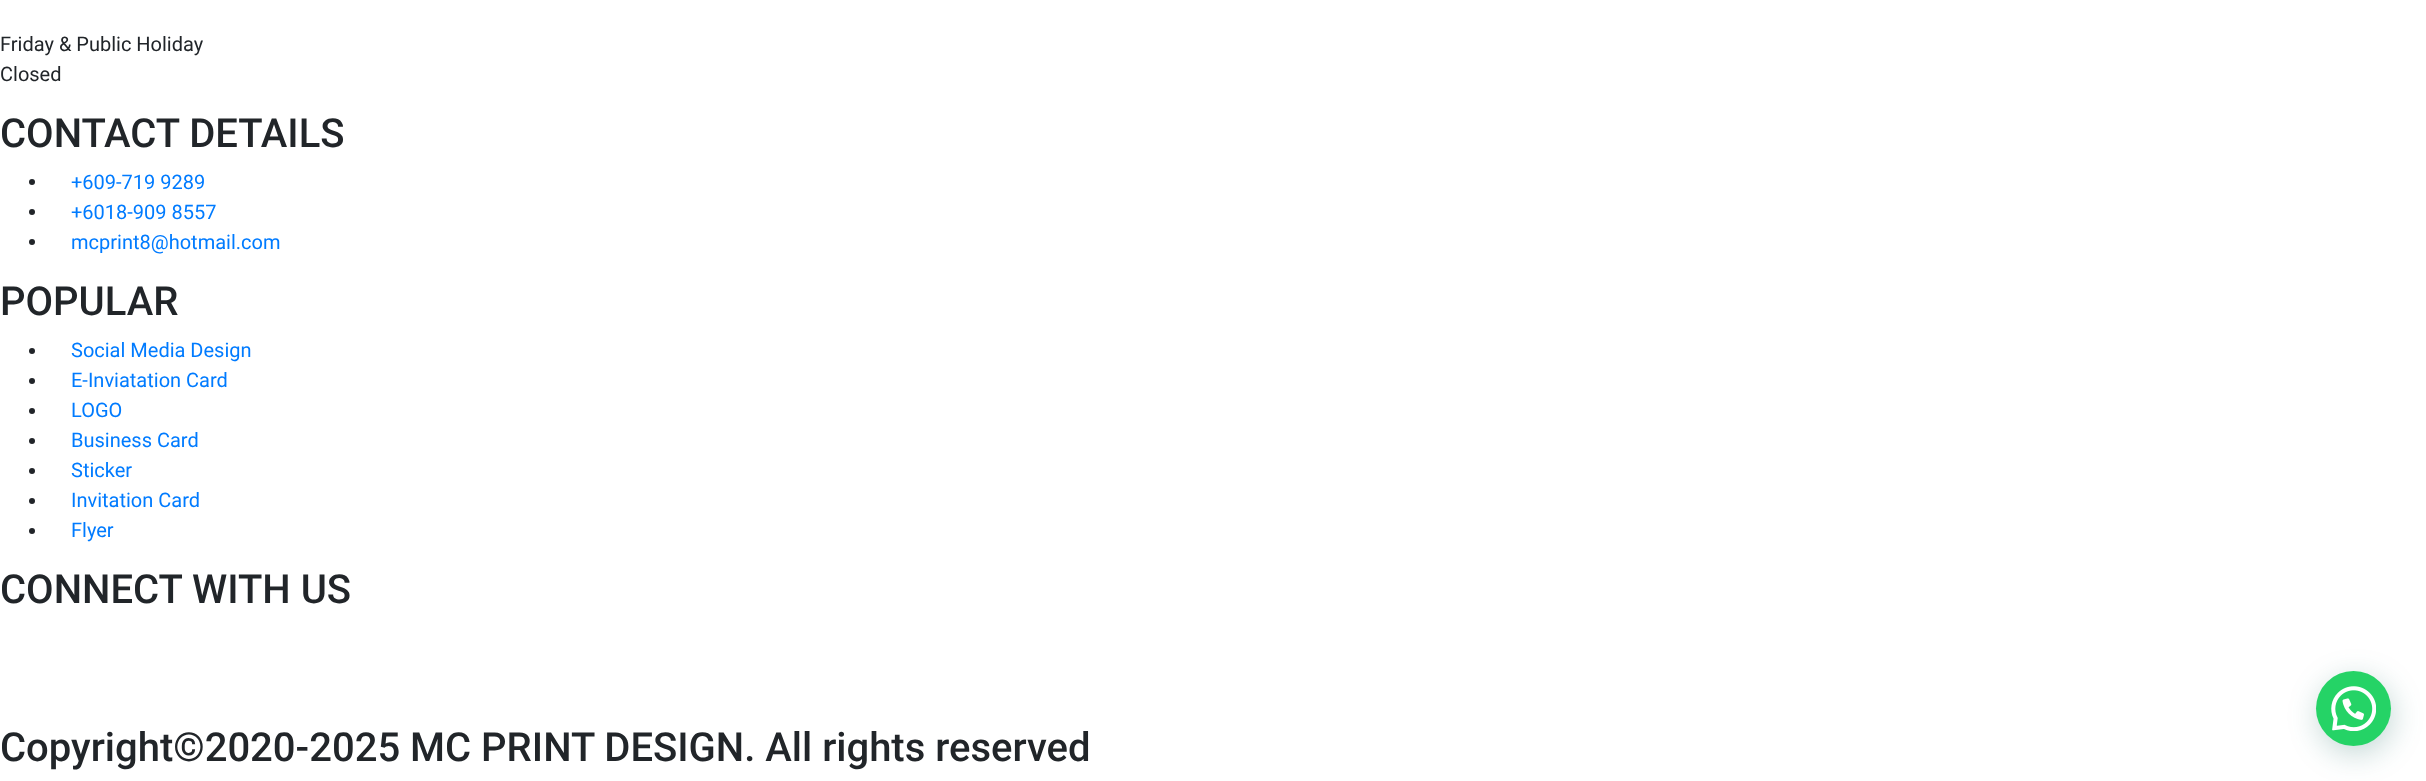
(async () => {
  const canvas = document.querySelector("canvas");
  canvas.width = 2426;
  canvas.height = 781;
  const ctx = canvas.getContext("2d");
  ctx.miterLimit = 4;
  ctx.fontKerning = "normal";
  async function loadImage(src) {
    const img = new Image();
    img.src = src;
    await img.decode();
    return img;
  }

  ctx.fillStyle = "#ffffff";
  ctx.fillRect(0, 0, 2426, 781);
  ctx.fillStyle = "#212529";
  ctx.beginPath();
  ctx.arc(32, 182, 3, 0, Math.PI * 2);
  ctx.fill();
  ctx.beginPath();
  ctx.arc(32, 212, 3, 0, Math.PI * 2);
  ctx.fill();
  ctx.beginPath();
  ctx.arc(32, 242, 3, 0, Math.PI * 2);
  ctx.fill();
  ctx.beginPath();
  ctx.arc(32, 351, 3, 0, Math.PI * 2);
  ctx.fill();
  ctx.beginPath();
  ctx.arc(32, 381, 3, 0, Math.PI * 2);
  ctx.fill();
  ctx.beginPath();
  ctx.arc(32, 411, 3, 0, Math.PI * 2);
  ctx.fill();
  ctx.beginPath();
  ctx.arc(32, 441, 3, 0, Math.PI * 2);
  ctx.fill();
  ctx.beginPath();
  ctx.arc(32, 471, 3, 0, Math.PI * 2);
  ctx.fill();
  ctx.beginPath();
  ctx.arc(32, 501, 3, 0, Math.PI * 2);
  ctx.fill();
  ctx.beginPath();
  ctx.arc(32, 531, 3, 0, Math.PI * 2);
  ctx.fill();
  ctx.fillStyle = "rgba(7, 94, 84, 0.24)";
  ctx.filter = "blur(15px)";
  ctx.beginPath();
  ctx.roundRect(2318, 679, 75, 75, 37.5);
  ctx.fill();
  ctx.filter = "none";
  ctx.fillStyle = "#25d366";
  ctx.beginPath();
  ctx.arc(2353.5, 708.5, 37.5, 0, Math.PI * 2);
  ctx.fill();
  ctx.drawImage(await loadImage("img/1.png"), 2331, 686, 45, 45);
  ctx.font = "20px Roboto";
  ctx.fillStyle = "#212529";
  ctx.fillText("Friday & Public Holiday", 0, 51);
  ctx.fillText("Closed", 0, 81);
  ctx.font = "500 40px Roboto";
  ctx.fillText("CONTACT DETAILS", 0, 147);
  ctx.font = "20px Roboto";
  ctx.fillStyle = "#007bff";
  for (const [text, x, y] of [
    ["+609-719 9289", 71, 189],
    ["+6018-909 8557", 71, 219],
    ["mcprint8@hotmail.com", 71, 249],
  ]) {
    ctx.fillText(text, x, y);
  }
  ctx.font = "500 40px Roboto";
  ctx.fillStyle = "#212529";
  ctx.fillText("POPULAR", 0, 315);
  ctx.font = "20px Roboto";
  ctx.fillStyle = "#007bff";
  for (const [text, x, y] of [
    ["Social Media Design", 71, 357],
    ["E-Inviatation Card", 71, 387],
    ["LOGO", 71, 417],
    ["Business Card", 71, 447],
    ["Sticker", 71, 477],
    ["Invitation Card", 71, 507],
    ["Flyer", 71, 537],
  ]) {
    ctx.fillText(text, x, y);
  }
  ctx.font = "500 40px Roboto";
  ctx.fillStyle = "#212529";
  ctx.fillText("CONNECT WITH US", 0, 603);
  ctx.fillText("Copyright©2020-2025 MC PRINT DESIGN. All rights reserved", 0, 761);
})();
